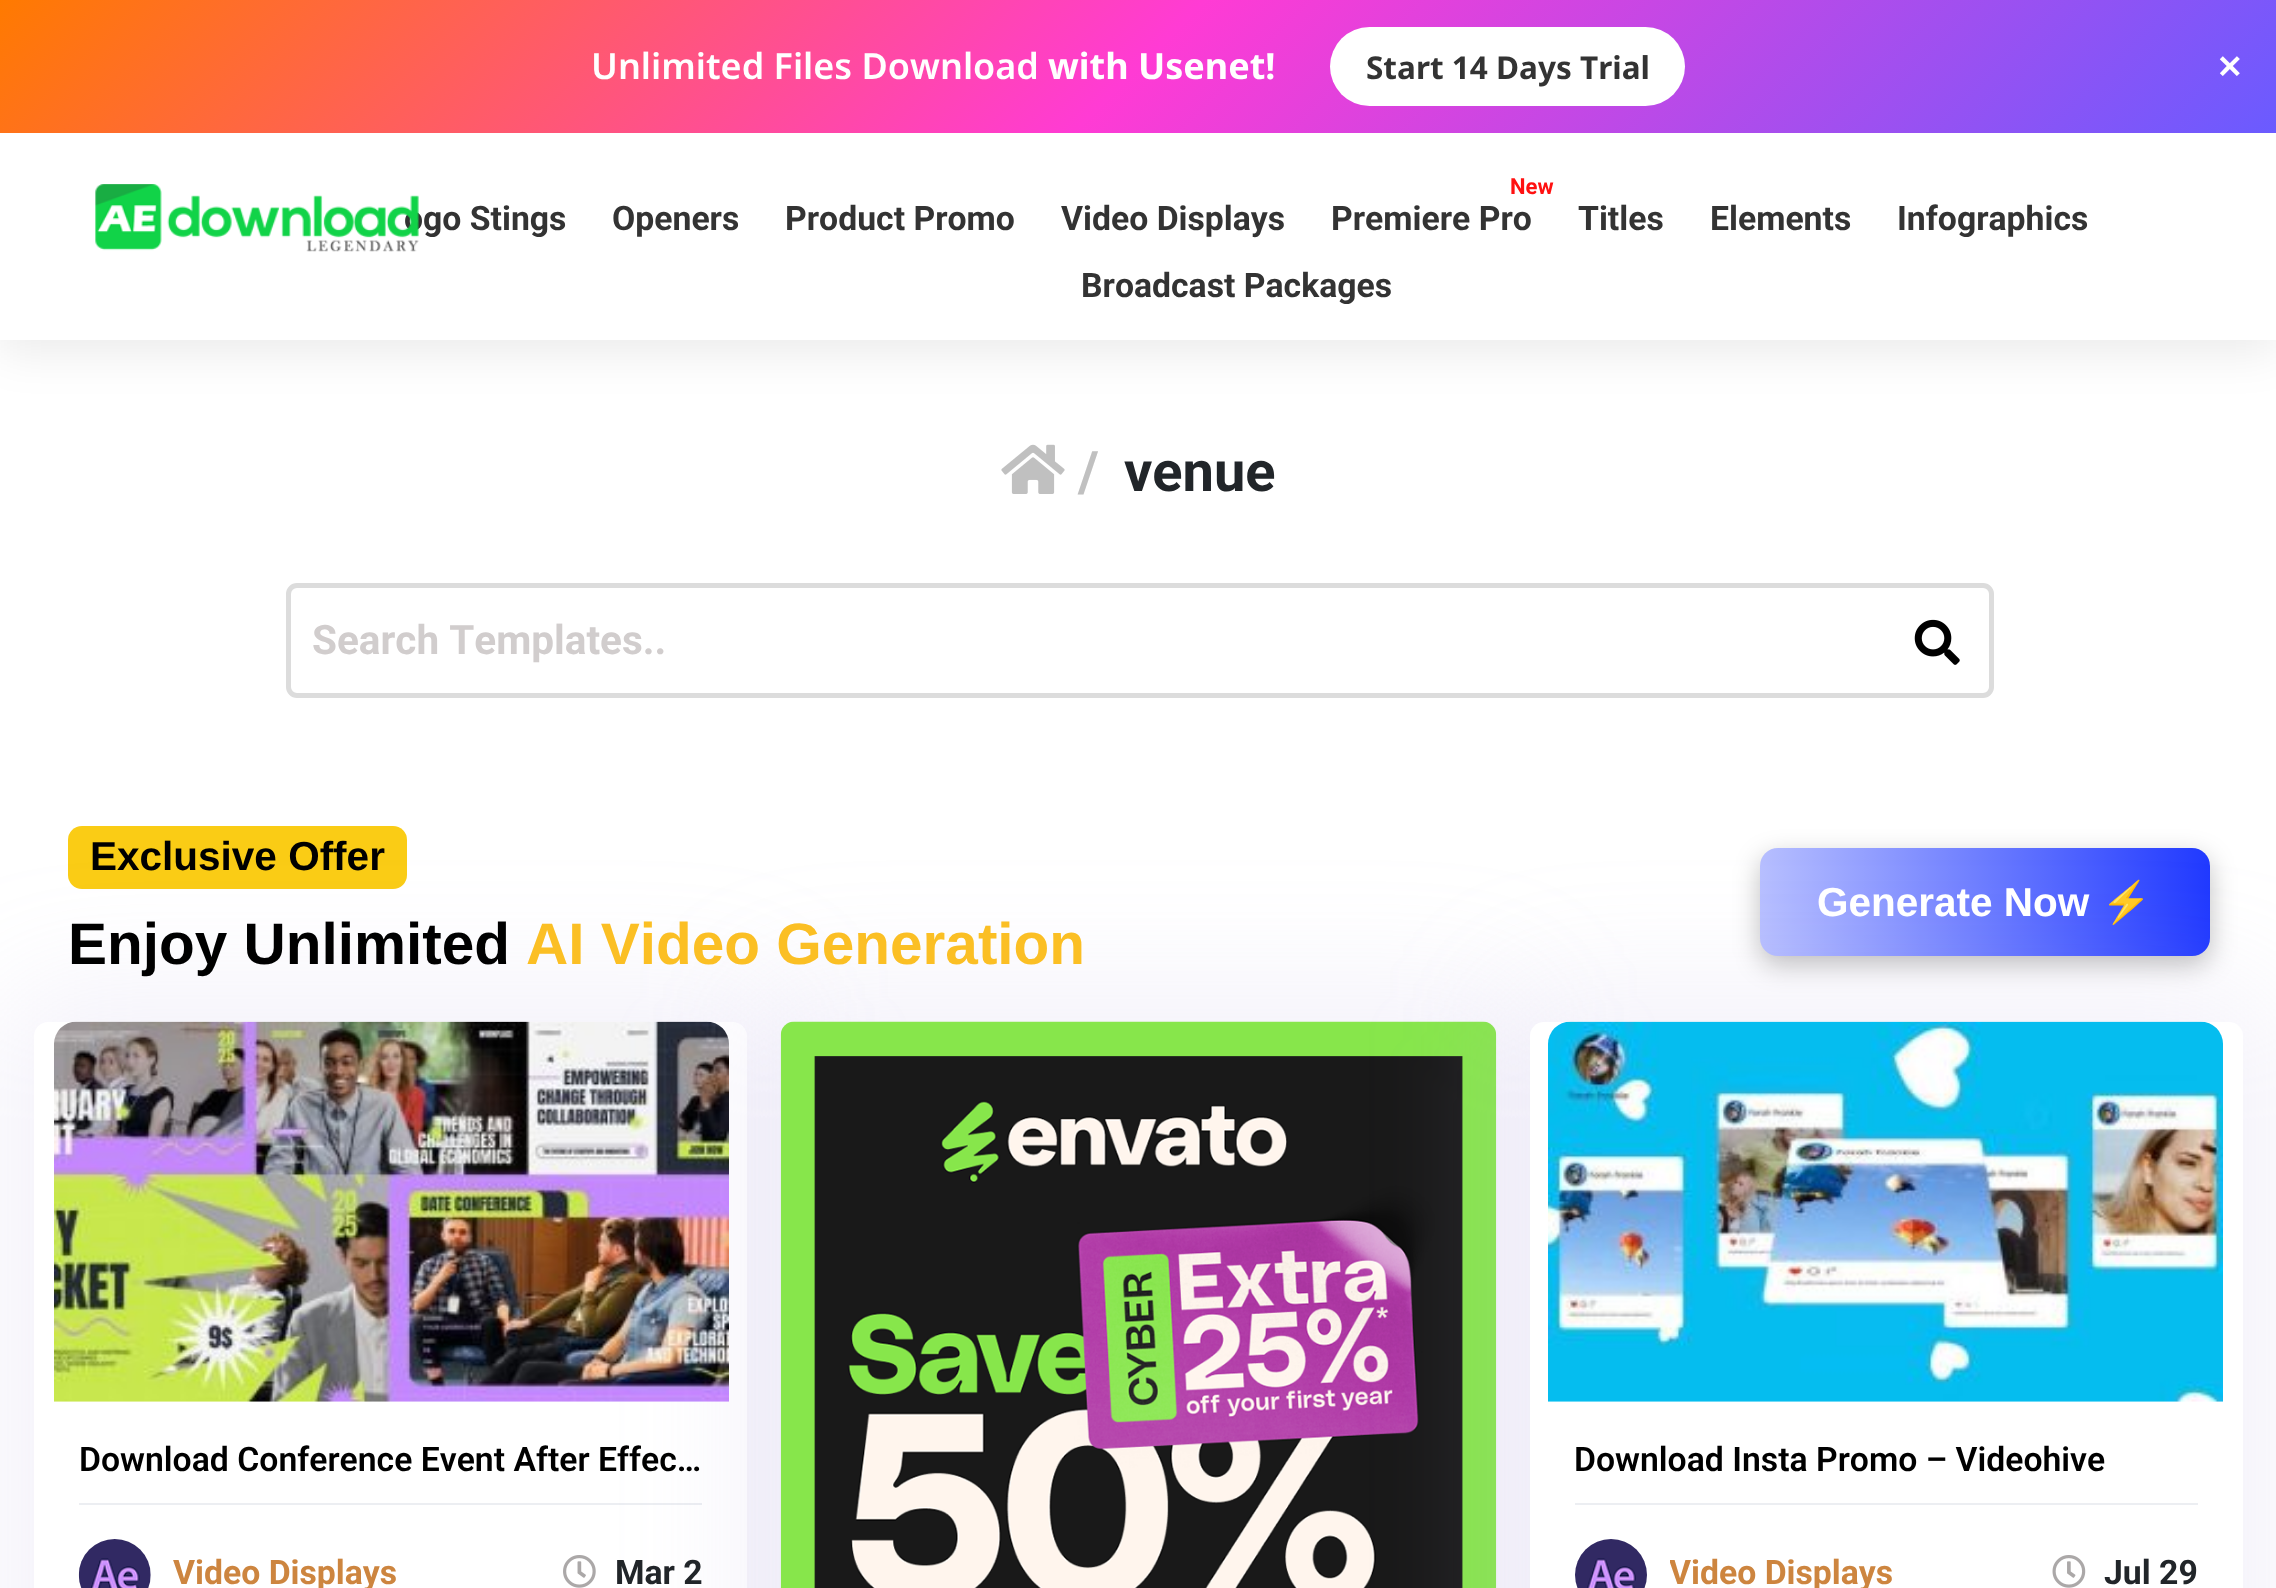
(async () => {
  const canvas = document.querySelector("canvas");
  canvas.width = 2276;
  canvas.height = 1588;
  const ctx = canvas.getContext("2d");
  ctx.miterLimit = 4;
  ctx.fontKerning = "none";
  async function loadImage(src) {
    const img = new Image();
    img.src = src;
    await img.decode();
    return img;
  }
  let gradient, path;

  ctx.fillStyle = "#ffffff";
  ctx.fillRect(0, 0, 2276, 1588);
  ctx.fillStyle = "rgba(0, 0, 0, 0.08)";
  ctx.filter = "blur(22.5px)";
  ctx.beginPath();
  ctx.rect(0, 146, 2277, 207);
  ctx.fill();
  ctx.filter = "none";
  gradient = ctx.createLinearGradient(536, -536, 1741, 669);
  gradient.addColorStop(0, "#ff7a00");
  gradient.addColorStop(0.5, "#ff3bd4");
  gradient.addColorStop(1, "#6a5bff");
  ctx.fillStyle = gradient;
  ctx.fillRect(0, 0, 2276, 133);
  ctx.fillStyle = "#ffffff";
  ctx.beginPath();
  ctx.roundRect(1330, 27, 355, 79, 39.5);
  ctx.fill();
  ctx.fillRect(0, 133, 2276, 207);
  ctx.drawImage(await loadImage("img/2.png"), 1001, 444, 64, 50);
  ctx.beginPath();
  ctx.roundRect(288.5, 585.5, 1703, 110, 8.5);
  ctx.strokeStyle = "#dcdcdc";
  ctx.lineWidth = 5;
  ctx.stroke();
  ctx.drawImage(await loadImage("img/3.png"), 1914, 619, 46, 46);
  ctx.fillStyle = "#facc15";
  ctx.beginPath();
  ctx.roundRect(68, 826, 339, 63, 14);
  ctx.fill();
  ctx.fillStyle = "rgba(0, 0, 0, 0.25)";
  ctx.filter = "blur(13.5px)";
  ctx.beginPath();
  ctx.roundRect(1760, 857, 450, 108, 18);
  ctx.fill();
  ctx.filter = "none";
  gradient = ctx.createLinearGradient(1760, 902, 2210, 902);
  gradient.addColorStop(0, "#b7bfff");
  gradient.addColorStop(1, "#2039ff");
  ctx.fillStyle = gradient;
  ctx.beginPath();
  ctx.roundRect(1760, 848, 450, 108, 18);
  ctx.fill();
  ctx.save();
  path = new Path2D("M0 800H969V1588H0ZM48 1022H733C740.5 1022 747 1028.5 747 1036V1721C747 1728.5 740.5 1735 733 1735H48C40.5 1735 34 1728.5 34 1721V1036C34 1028.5 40.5 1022 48 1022Z");
  ctx.clip(path, "evenodd");
  ctx.fillStyle = "rgba(186, 179, 226, 0.18)";
  ctx.filter = "blur(63px)";
  ctx.beginPath();
  ctx.roundRect(2, 990, 777, 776, 45);
  ctx.fill();
  ctx.filter = "none";
  ctx.restore();
  ctx.fillStyle = "#eceef2";
  ctx.fillRect(79, 1503, 623, 2);
  ctx.drawImage(await loadImage("img/6.png"), 563, 1555, 33, 33);
  ctx.fillStyle = "rgba(186, 179, 226, 0.18)";
  ctx.filter = "blur(63px)";
  ctx.beginPath();
  ctx.roundRect(749, 990, 779, 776, 45);
  ctx.fill();
  ctx.filter = "none";
  ctx.drawImage(await loadImage("img/4.png"), 54, 1021, 675, 381);
  ctx.drawImage(await loadImage("img/5.png"), 78, 1539, 73, 49);
  ctx.drawImage(await loadImage("img/7.png"), 780, 1021, 717, 567);
  ctx.filter = "blur(63px)";
  ctx.beginPath();
  ctx.roundRect(1499, 990, 776, 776, 45);
  ctx.fill();
  ctx.filter = "none";
  ctx.fillStyle = "#ffffff";
  ctx.beginPath();
  ctx.roundRect(1530, 1022, 713, 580, 14);
  ctx.fill();
  ctx.drawImage(await loadImage("img/8.png"), 1548, 1021, 675, 381);
  ctx.fillStyle = "#eceef2";
  ctx.fillRect(1575, 1503, 623, 2);
  ctx.drawImage(await loadImage("img/9.png"), 1575, 1539, 72, 49);
  ctx.drawImage(await loadImage("img/10.png"), 2052, 1555, 34, 33);
  ctx.font = "600 36px Noto Sans";
  ctx.fillStyle = "#ffffff";
  ctx.fillText("Unlimited Files Download", 591, 79);
  ctx.font = "bold 36px Noto Sans";
  ctx.fillText("with Usenet!", 1048, 79);
  ctx.font = "bold 31.5px Noto Sans";
  ctx.fillStyle = "#333333";
  ctx.fillText("Start 14 Days Trial", 1366, 79);
  ctx.font = "600 45px Noto Sans";
  ctx.fillStyle = "#ffffff";
  ctx.fillText("×", 2217, 82);
  ctx.font = "bold 33.75px Roboto";
  ctx.fillStyle = "#333333";
  ctx.fillText("ogo Stings", 404, 230);
  ctx.drawImage(await loadImage("img/1.png"), 95, 184, 324, 68);
  for (const [text, x, y] of [
    ["Openers", 612, 230],
    ["Product Promo", 785, 230],
    ["Video Displays", 1061, 230],
  ]) {
    ctx.fillText(text, x, y);
  }
  ctx.font = "bold 22px Roboto";
  ctx.fillStyle = "#ff1111";
  ctx.fillText("New", 1510, 194);
  ctx.font = "bold 33.75px Roboto";
  ctx.fillStyle = "#333333";
  for (const [text, x, y] of [
    ["Premiere Pro", 1331, 230],
    ["Titles", 1578, 230],
    ["Elements", 1710, 230],
    ["Infographics", 1897, 230],
    ["Broadcast Packages", 1081, 297],
  ]) {
    ctx.fillText(text, x, y);
  }
  ctx.font = "bold 56px Roboto";
  ctx.fillStyle = "#c0c0c0";
  ctx.fillText("/", 1078, 491);
  ctx.fillStyle = "#212529";
  ctx.fillText("venue", 1124, 491);
  ctx.font = "bold 40.5px Roboto";
  ctx.fillStyle = "#d1cdcd";
  ctx.fillText("Search Templates..", 312, 654);
  ctx.font = "bold 40.5px Liberation Sans";
  ctx.fillStyle = "#000000";
  ctx.fillText("Exclusive Offer", 90, 870);
  ctx.font = "bold 58.5px Liberation Sans";
  ctx.fillText("Enjoy Unlimited", 68, 964);
  ctx.fillStyle = "#fbbf24";
  ctx.fillText("AI Video Generation", 526, 964);
  ctx.font = "bold 40.5px Liberation Sans";
  ctx.fillStyle = "#ffffff";
  ctx.fillText("Generate Now", 1817, 916);
  ctx.font = "bold 40.5px Noto Color Emoji";
  ctx.fillText("⚡", 2101, 916);
  ctx.font = "600 33.75px Roboto";
  ctx.fillStyle = "#000000";
  ctx.fillText("Download Conference Event After Effec…", 79, 1471);
  ctx.font = "bold 33.75px Roboto";
  ctx.fillStyle = "#cd853f";
  ctx.fillText("Video Displays", 173, 1584);
  ctx.fillStyle = "#212529";
  ctx.fillText("Mar 2", 615, 1584);
  ctx.font = "600 33.75px Roboto";
  ctx.fillStyle = "#000000";
  ctx.fillText("Download Insta Promo – Videohive", 1574, 1471);
  ctx.save();
  ctx.beginPath();
  ctx.rect(1670, 1539, 222, 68);
  ctx.clip();
  ctx.font = "bold 33.75px Roboto";
  ctx.fillStyle = "#cd853f";
  ctx.fillText("Video Displays", 1669, 1584);
  ctx.restore();
  ctx.font = "bold 33.75px Roboto";
  ctx.fillStyle = "#212529";
  ctx.fillText("Jul 29", 2104, 1584);
})();
